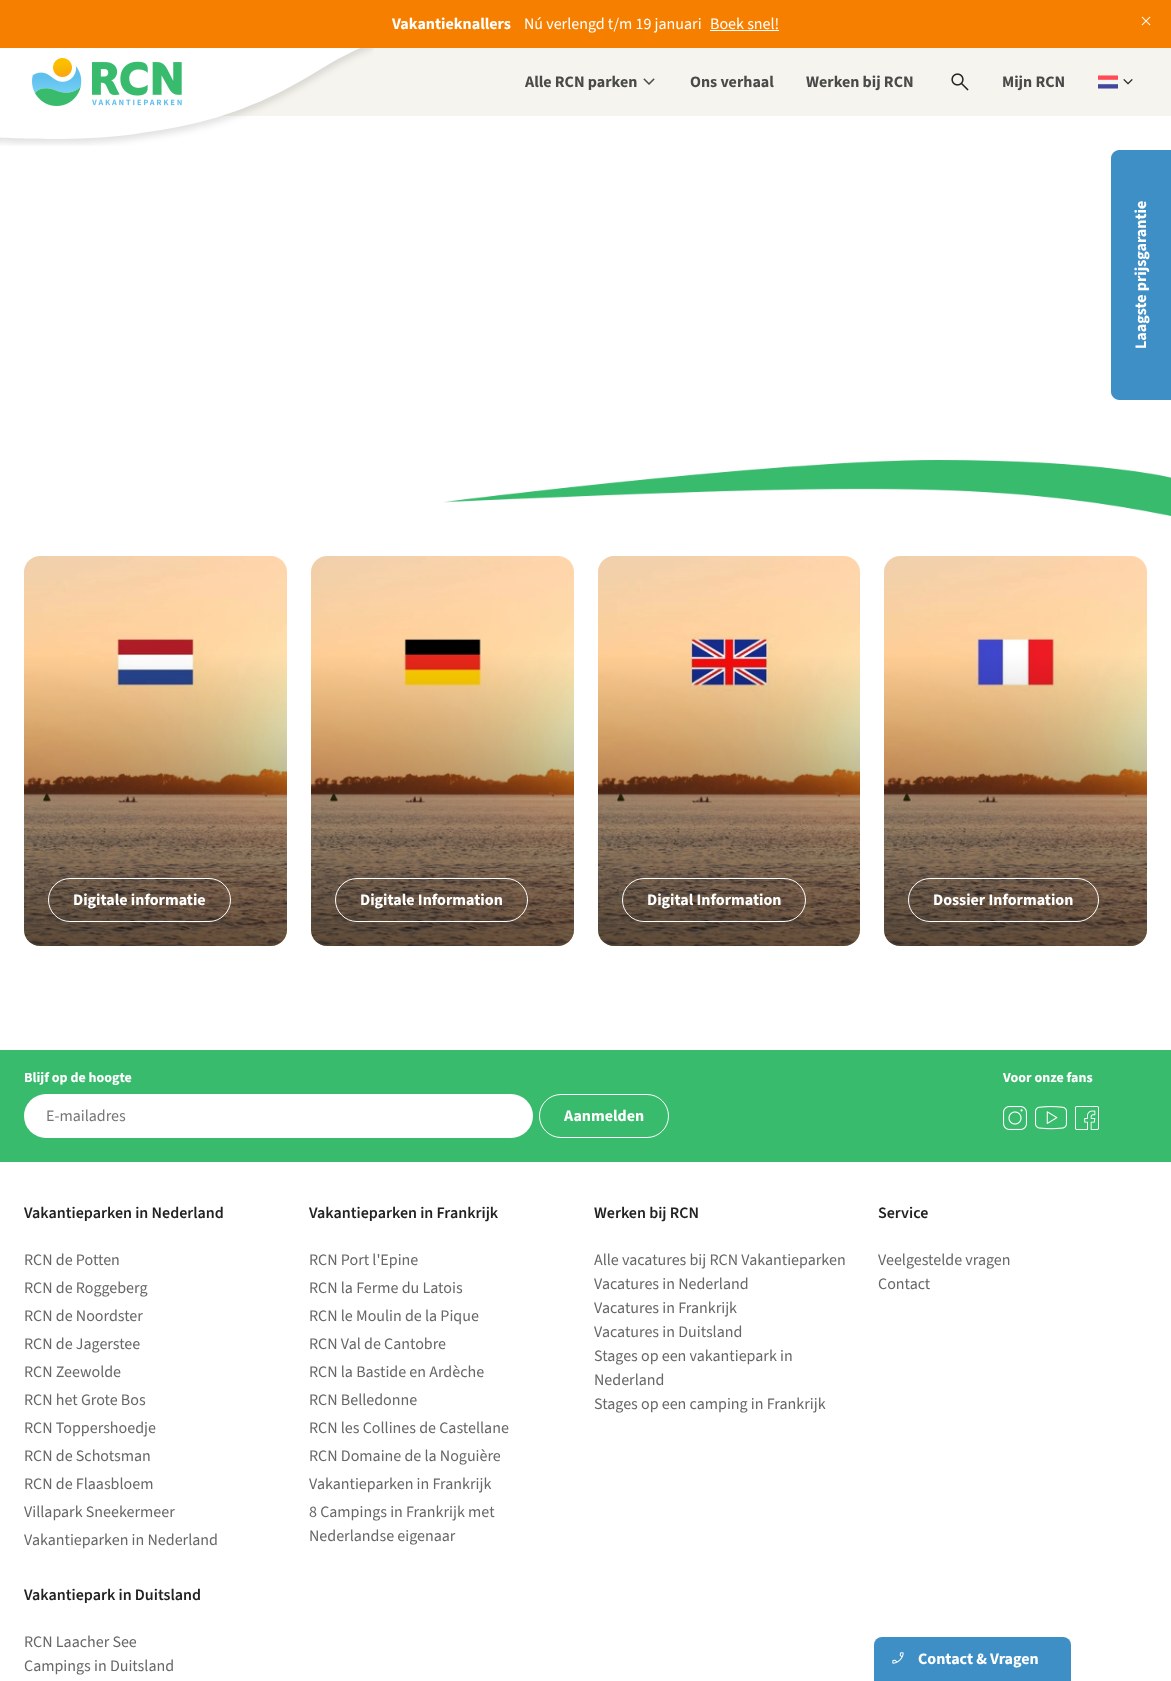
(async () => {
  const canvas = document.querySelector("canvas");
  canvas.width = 1171;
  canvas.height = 1681;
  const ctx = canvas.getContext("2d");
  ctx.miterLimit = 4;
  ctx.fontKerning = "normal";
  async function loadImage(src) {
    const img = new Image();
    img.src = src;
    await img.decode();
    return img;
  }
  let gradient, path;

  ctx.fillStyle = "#ffffff";
  ctx.fillRect(0, 0, 1171, 1681);
  ctx.fillStyle = "#f67f00";
  ctx.fillRect(0, 0, 1171, 48);
  ctx.fillStyle = "#ffffff";
  ctx.fillRect(710, 30, 69, 1);
  ctx.drawImage(await loadImage("img/1.png"), 1141, 16, 10, 10);
  ctx.fillStyle = "#f6f4ee";
  ctx.fillRect(221, 48, 950, 68);
  ctx.drawImage(await loadImage("img/2.png"), 0, 48, 374, 98);
  ctx.drawImage(await loadImage("img/3.png"), 32, 58, 150, 48);
  ctx.drawImage(await loadImage("img/4.png"), 643, 78, 12, 7);
  ctx.drawImage(await loadImage("img/5.png"), 951, 73, 18, 18);
  ctx.drawImage(await loadImage("img/6.png"), 1098, 75, 20, 14);
  ctx.drawImage(await loadImage("img/7.png"), 1123, 79, 10, 6);
  ctx.fillStyle = "#3f8fc7";
  path = new Path2D("M1111 392V158C1111 154 1115 150 1119 150H1171V400H1119C1115 400 1111 396 1111 392Z");
  ctx.fill(path);
  ctx.drawImage(await loadImage("img/8.png"), 444, 460, 727, 56);
  ctx.drawImage(await loadImage("img/9.png"), 24, 556, 263, 390);
  gradient = ctx.createLinearGradient(155, 556, 156, 946);
  gradient.addColorStop(0.25, "rgba(0, 0, 0, 0)");
  gradient.addColorStop(1, "rgba(0, 0, 0, 0.6)");
  ctx.fillStyle = gradient;
  ctx.beginPath();
  ctx.roundRect(24, 556, 263, 390, 16);
  ctx.fill();
  ctx.beginPath();
  ctx.roundRect(48.5, 878.5, 182, 43, 21.5);
  ctx.strokeStyle = "#ffffff";
  ctx.stroke();
  ctx.drawImage(await loadImage("img/10.png"), 311, 556, 263, 390);
  gradient = ctx.createLinearGradient(443, 556, 443, 946);
  gradient.addColorStop(0.25, "rgba(0, 0, 0, 0)");
  gradient.addColorStop(1, "rgba(0, 0, 0, 0.6)");
  ctx.fillStyle = gradient;
  ctx.beginPath();
  ctx.roundRect(311, 556, 263, 390, 16);
  ctx.fill();
  ctx.beginPath();
  ctx.roundRect(335.5, 878.5, 192, 43, 21.5);
  ctx.stroke();
  ctx.drawImage(await loadImage("img/11.png"), 598, 556, 262, 390);
  gradient = ctx.createLinearGradient(729, 556, 729, 946);
  gradient.addColorStop(0.25, "rgba(0, 0, 0, 0)");
  gradient.addColorStop(1, "rgba(0, 0, 0, 0.6)");
  ctx.fillStyle = gradient;
  ctx.beginPath();
  ctx.roundRect(598, 556, 262, 390, 16);
  ctx.fill();
  ctx.beginPath();
  ctx.roundRect(622.5, 878.5, 183, 43, 21.5);
  ctx.stroke();
  ctx.drawImage(await loadImage("img/12.png"), 884, 556, 263, 390);
  gradient = ctx.createLinearGradient(1016, 556, 1016, 946);
  gradient.addColorStop(0.25, "rgba(0, 0, 0, 0)");
  gradient.addColorStop(1, "rgba(0, 0, 0, 0.6)");
  ctx.fillStyle = gradient;
  ctx.beginPath();
  ctx.roundRect(884, 556, 263, 390, 16);
  ctx.fill();
  ctx.beginPath();
  ctx.roundRect(908.5, 878.5, 190, 43, 21.5);
  ctx.stroke();
  ctx.fillStyle = "#39bb6e";
  ctx.fillRect(0, 1050, 1171, 112);
  ctx.fillStyle = "#ffffff";
  ctx.beginPath();
  ctx.roundRect(24, 1094, 509, 44, 22);
  ctx.fill();
  ctx.beginPath();
  ctx.roundRect(539.5, 1094.5, 129, 43, 21.5);
  ctx.stroke();
  ctx.drawImage(await loadImage("img/13.png"), 1003, 1106, 24, 24);
  ctx.drawImage(await loadImage("img/14.png"), 1035, 1106, 32, 24);
  ctx.drawImage(await loadImage("img/15.png"), 1075, 1106, 24, 24);
  ctx.fillStyle = "#3f8fc7";
  ctx.beginPath();
  ctx.roundRect(874, 1637, 197, 44, [8, 8, 0, 0]);
  ctx.fill();
  ctx.drawImage(await loadImage("img/16.png"), 892, 1652, 12, 12);
  ctx.font = "bold 16px 'Source Sans 3'";
  ctx.fillStyle = "#ffffff";
  ctx.fillText("Vakantieknallers", 392, 29);
  ctx.font = "16px 'Source Sans 3'";
  ctx.fillText("Nú verlengd t/m 19 januari", 524, 29);
  ctx.fillText("Boek snel!", 710, 29);
  ctx.font = "bold 16px 'Source Sans 3'";
  ctx.fillStyle = "#4a4a4a";
  for (const [text, x, y] of [
    ["Alle RCN parken", 525, 87],
    ["Ons verhaal", 690, 87],
    ["Werken bij RCN", 806, 87],
    ["Mijn RCN", 1002, 87],
  ]) {
    ctx.fillText(text, x, y);
  }
  ctx.fillStyle = "#ffffff";
  ctx.save();
  ctx.translate(1146, 349);
  ctx.rotate(-90 * Math.PI / 180);
  ctx.fillText("Laagste prijsgarantie", 0, 0);
  ctx.restore();
  for (const [text, x, y] of [
    ["Digitale informatie", 73, 905],
    ["Digitale Information", 360, 905],
    ["Digital Information", 647, 905],
    ["Dossier Information", 933, 905],
  ]) {
    ctx.fillText(text, x, y);
  }
  ctx.font = "bold 14px 'Source Sans 3'";
  ctx.fillText("Blijf op de hoogte", 24, 1082);
  ctx.font = "16px 'Source Sans 3'";
  ctx.fillStyle = "#767676";
  ctx.fillText("E-mailadres", 46, 1121);
  ctx.font = "bold 16px 'Source Sans 3'";
  ctx.fillStyle = "#ffffff";
  ctx.fillText("Aanmelden", 564, 1121);
  ctx.font = "bold 14px 'Source Sans 3'";
  ctx.fillText("Voor onze fans", 1003, 1082);
  ctx.font = "600 16px 'Source Sans 3'";
  ctx.fillStyle = "#222222";
  ctx.fillText("Vakantieparken in Nederland", 24, 1218);
  ctx.font = "16px 'Source Sans 3'";
  ctx.fillStyle = "#676767";
  for (const [text, x, y] of [
    ["RCN de Potten", 24, 1265],
    ["RCN de Roggeberg", 24, 1293],
    ["RCN de Noordster", 24, 1321],
    ["RCN de Jagerstee", 24, 1349],
    ["RCN Zeewolde", 24, 1377],
    ["RCN het Grote Bos", 24, 1405],
    ["RCN Toppershoedje", 24, 1433],
    ["RCN de Schotsman", 24, 1461],
    ["RCN de Flaasbloem", 24, 1489],
    ["Villapark Sneekermeer", 24, 1517],
    ["Vakantieparken in Nederland", 24, 1545],
  ]) {
    ctx.fillText(text, x, y);
  }
  ctx.font = "600 16px 'Source Sans 3'";
  ctx.fillStyle = "#222222";
  ctx.fillText("Vakantiepark in Duitsland", 24, 1600);
  ctx.font = "16px 'Source Sans 3'";
  ctx.fillStyle = "#676767";
  ctx.fillText("RCN Laacher See", 24, 1647);
  ctx.fillText("Campings in Duitsland", 24, 1671);
  ctx.font = "600 16px 'Source Sans 3'";
  ctx.fillStyle = "#222222";
  ctx.fillText("Vakantieparken in Frankrijk", 309, 1218);
  ctx.font = "16px 'Source Sans 3'";
  ctx.fillStyle = "#676767";
  for (const [text, x, y] of [
    ["RCN Port l'Epine", 309, 1265],
    ["RCN la Ferme du Latois", 309, 1293],
    ["RCN le Moulin de la Pique", 309, 1321],
    ["RCN Val de Cantobre", 309, 1349],
    ["RCN la Bastide en Ardèche", 309, 1377],
    ["RCN Belledonne", 309, 1405],
    ["RCN les Collines de Castellane", 309, 1433],
    ["RCN Domaine de la Noguière", 309, 1461],
    ["Vakantieparken in Frankrijk", 309, 1489],
    ["8 Campings in Frankrijk met", 309, 1517],
    ["Nederlandse eigenaar", 309, 1541],
  ]) {
    ctx.fillText(text, x, y);
  }
  ctx.font = "600 16px 'Source Sans 3'";
  ctx.fillStyle = "#222222";
  ctx.fillText("Werken bij RCN", 594, 1218);
  ctx.font = "16px 'Source Sans 3'";
  ctx.fillStyle = "#676767";
  for (const [text, x, y] of [
    ["Alle vacatures bij RCN Vakantieparken", 594, 1265],
    ["Vacatures in Nederland", 594, 1289],
    ["Vacatures in Frankrijk", 594, 1313],
    ["Vacatures in Duitsland", 594, 1337],
    ["Stages op een vakantiepark in", 594, 1361],
    ["Nederland", 594, 1385],
    ["Stages op een camping in Frankrijk", 594, 1409],
  ]) {
    ctx.fillText(text, x, y);
  }
  ctx.font = "600 16px 'Source Sans 3'";
  ctx.fillStyle = "#222222";
  ctx.fillText("Service", 878, 1218);
  ctx.font = "16px 'Source Sans 3'";
  ctx.fillStyle = "#676767";
  ctx.fillText("Veelgestelde vragen", 878, 1265);
  ctx.fillText("Contact", 878, 1289);
  ctx.font = "bold 16px 'Source Sans 3'";
  ctx.fillStyle = "#ffffff";
  ctx.fillText("Contact & Vragen", 918, 1664);
})();
